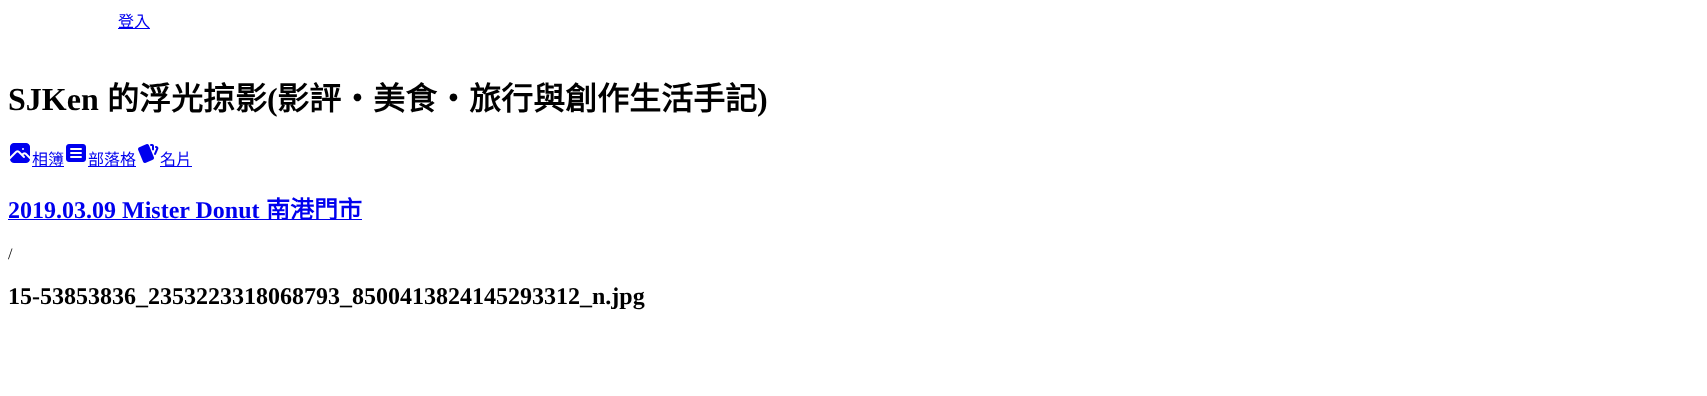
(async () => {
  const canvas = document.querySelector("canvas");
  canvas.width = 1707;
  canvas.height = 396;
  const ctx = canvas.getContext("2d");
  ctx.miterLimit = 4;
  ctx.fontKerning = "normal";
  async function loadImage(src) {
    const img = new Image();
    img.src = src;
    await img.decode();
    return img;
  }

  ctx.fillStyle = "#ffffff";
  ctx.fillRect(0, 0, 1707, 396);
  ctx.fillStyle = "#0000ee";
  ctx.fillRect(118, 28, 32, 1);
  ctx.drawImage(await loadImage("img/1.png"), 10, 143, 20, 20);
  ctx.fillRect(32, 166, 32, 1);
  ctx.drawImage(await loadImage("img/2.png"), 66, 144, 20, 18);
  ctx.fillRect(88, 166, 48, 1);
  ctx.drawImage(await loadImage("img/3.png"), 138, 144, 21, 19);
  ctx.fillRect(160, 166, 32, 1);
  ctx.fillRect(8, 219, 354, 1);
  ctx.font = "16px Noto Sans CJK TC";
  ctx.fillText("登入", 118, 27);
  ctx.font = "bold 32px Liberation Serif";
  ctx.fillStyle = "#000000";
  ctx.fillText("SJKen", 8, 110);
  ctx.font = "bold 32px Noto Sans CJK TC";
  ctx.fillText("的浮光掠影", 107, 110);
  ctx.font = "bold 32px Liberation Serif";
  ctx.fillText("(", 267, 110);
  ctx.font = "bold 32px Noto Sans CJK TC";
  ctx.fillText("影評‧美食‧旅行與創作生活手記", 277, 110);
  ctx.font = "bold 32px Liberation Serif";
  ctx.fillText(")", 757, 110);
  ctx.font = "16px Noto Sans CJK TC";
  ctx.fillStyle = "#0000ee";
  for (const [text, x, y] of [
    ["相簿", 32, 165],
    ["部落格", 88, 165],
    ["名片", 160, 165],
  ]) {
    ctx.fillText(text, x, y);
  }
  ctx.font = "bold 24px Liberation Serif";
  ctx.fillText("2019.03.09 Mister Donut", 8, 218);
  ctx.font = "bold 24px Noto Sans CJK TC";
  ctx.fillText("南港門市", 266, 218);
  ctx.font = "16px Liberation Serif";
  ctx.fillStyle = "#000000";
  ctx.fillText("/", 8, 259);
  ctx.font = "bold 24px Liberation Serif";
  ctx.fillText("15-53853836_2353223318068793_8500413824145293312_n.jpg", 8, 304);
})();
